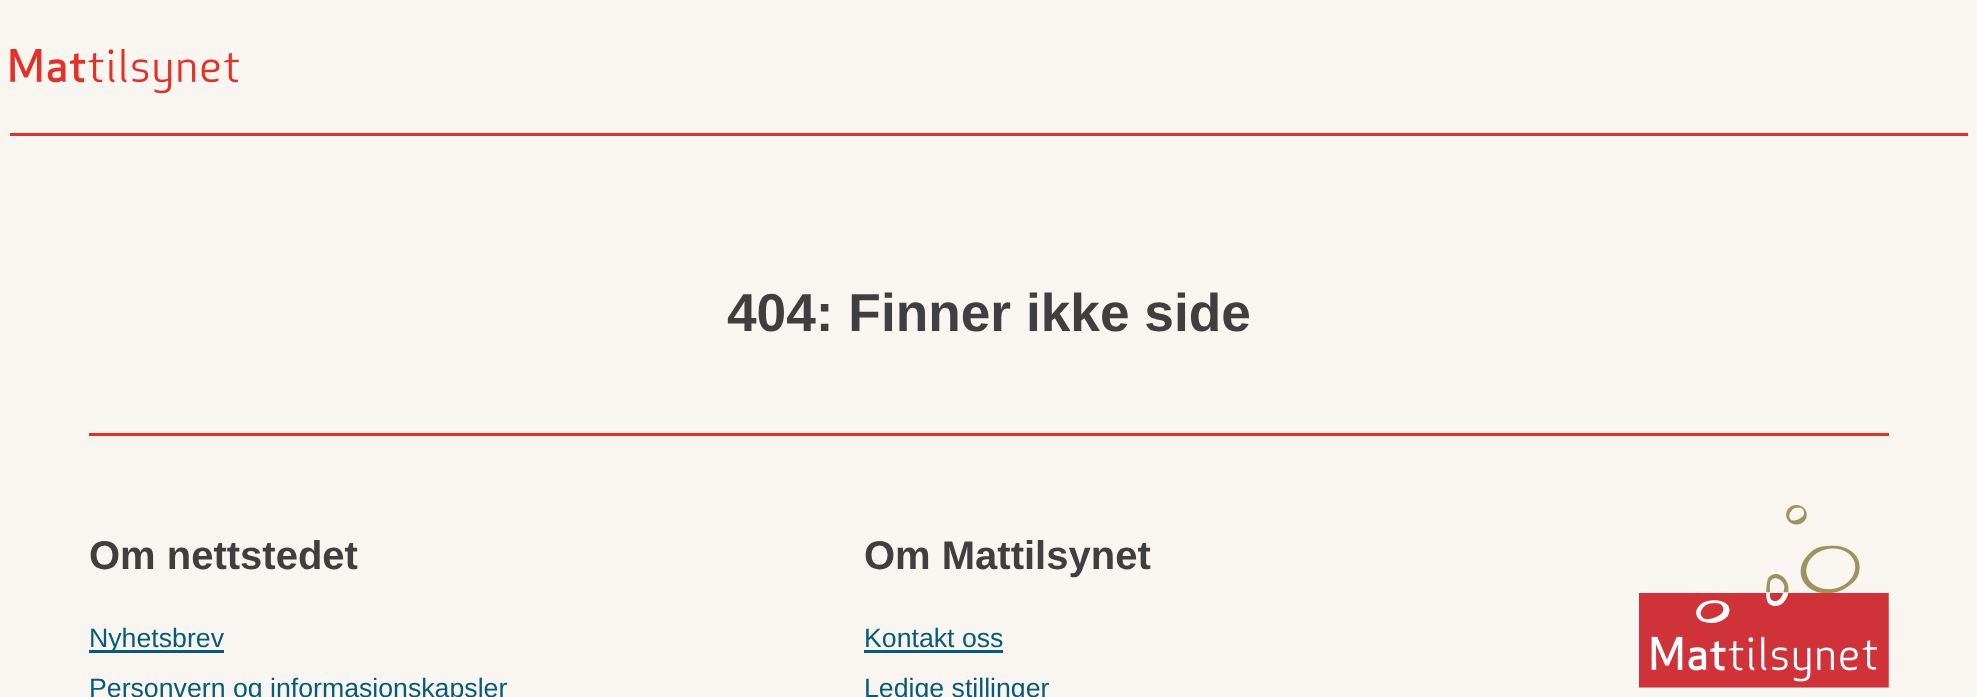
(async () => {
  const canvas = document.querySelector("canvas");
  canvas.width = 1977;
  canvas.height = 697;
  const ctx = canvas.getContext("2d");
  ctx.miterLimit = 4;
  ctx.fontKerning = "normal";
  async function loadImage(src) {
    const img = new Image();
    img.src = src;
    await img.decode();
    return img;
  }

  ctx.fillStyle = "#f9f6f1";
  ctx.fillRect(0, 0, 1977, 697);
  ctx.fillStyle = "#e23128";
  ctx.fillRect(10, 133, 1958, 3);
  ctx.drawImage(await loadImage("img/1.png"), 10, 49, 229, 45);
  for (const [x, y, w, h, color] of [
    [89, 433, 1800, 3, "#e23128"],
    [89, 650, 135, 3, "#075a78"],
    [864, 650, 139, 3, "#075a78"],
  ]) {
    ctx.fillStyle = color;
    ctx.fillRect(x, y, w, h);
  }
  ctx.drawImage(await loadImage("img/2.png"), 1639, 505, 250, 183);
  ctx.font = "bold 53.25px Liberation Sans";
  ctx.fillStyle = "#403f3f";
  ctx.fillText("404: Finner ikke side", 727, 331);
  ctx.font = "bold 40px Liberation Sans";
  ctx.fillText("Om nettstedet", 89, 569);
  ctx.font = "26.7px Liberation Sans";
  ctx.fillStyle = "#075a78";
  ctx.fillText("Nyhetsbrev", 89, 647);
  ctx.fillText("Personvern og informasjonskapsler", 89, 697);
  ctx.font = "bold 40px Liberation Sans";
  ctx.fillStyle = "#403f3f";
  ctx.fillText("Om Mattilsynet", 864, 569);
  ctx.font = "26.7px Liberation Sans";
  ctx.fillStyle = "#075a78";
  ctx.fillText("Kontakt oss", 864, 647);
  ctx.fillText("Ledige stillinger", 864, 697);
})();
